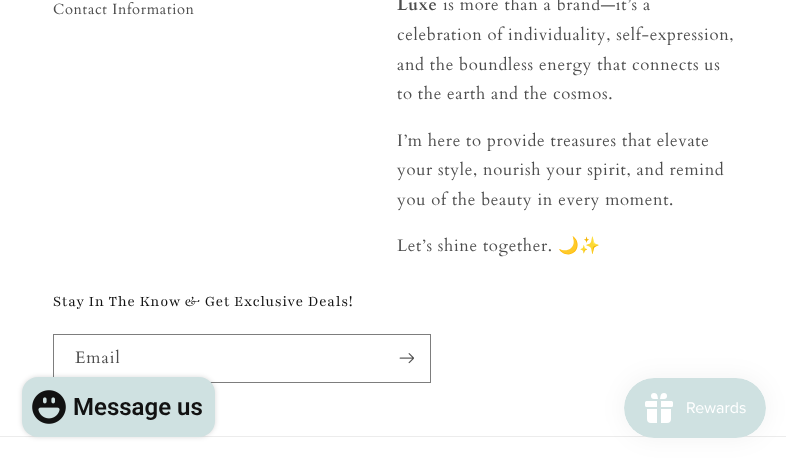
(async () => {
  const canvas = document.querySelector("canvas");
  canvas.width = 786;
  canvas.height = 458;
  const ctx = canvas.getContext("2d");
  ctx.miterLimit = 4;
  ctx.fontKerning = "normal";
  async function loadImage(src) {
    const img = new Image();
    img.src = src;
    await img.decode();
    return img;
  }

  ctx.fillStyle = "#ffffff";
  ctx.fillRect(0, 0, 786, 458);
  ctx.strokeStyle = "#7d7d7d";
  ctx.strokeRect(53.5, 334.5, 377, 48);
  ctx.drawImage(await loadImage("img/1.png"), 399, 353, 15, 11);
  ctx.fillStyle = "#ececec";
  ctx.fillRect(0, 436, 786, 1);
  ctx.fillStyle = "rgba(0, 0, 0, 0.15)";
  ctx.filter = "blur(2.5px)";
  ctx.beginPath();
  ctx.roundRect(22, 377, 193, 60, 16);
  ctx.fill();
  ctx.filter = "none";
  ctx.fillStyle = "#cfe1e1";
  ctx.beginPath();
  ctx.roundRect(22, 377, 193, 60, 16);
  ctx.fill();
  ctx.drawImage(await loadImage("img/2.png"), 32, 390, 34, 34);
  ctx.fillStyle = "rgba(0, 0, 0, 0.05)";
  ctx.filter = "blur(12.5px)";
  ctx.beginPath();
  ctx.roundRect(624, 378, 142, 60, 30);
  ctx.fill();
  ctx.filter = "none";
  ctx.drawImage(await loadImage("img/3.png"), 624, 378, 142, 60);
  ctx.letterSpacing = "0.65px";
  ctx.font = "14.75px Cardo";
  ctx.fillStyle = "#4d4d4d";
  ctx.fillText("Contact Information", 53, 14);
  ctx.font = "bold 16.8px Cardo";
  ctx.fillText("Luxe", 397, 10);
  ctx.font = "16.8px Cardo";
  for (const [text, x, y] of [
    ["is more than a brand—it’s a", 443, 10],
    ["celebration of individuality, self-expression,", 397, 40],
    ["and the boundless energy that connects us", 397, 70],
    ["to the earth and the cosmos.", 397, 99],
    ["I’m here to provide treasures that elevate", 397, 146],
    ["your style, nourish your spirit, and remind", 397, 175],
    ["you of the beauty in every moment.", 397, 205],
    ["Let’s shine together.", 397, 251],
  ]) {
    ctx.fillText(text, x, y);
  }
  ctx.font = "16.8px Noto Color Emoji";
  ctx.fillText("🌙✨", 558, 251);
  ctx.letterSpacing = "0.6px";
  ctx.font = "16px Playfair";
  ctx.fillStyle = "#121212";
  ctx.fillText("Stay In The Know & Get Exclusive Deals!", 53, 306);
  ctx.letterSpacing = "1px";
  ctx.font = "16.8px Cardo";
  ctx.fillStyle = "#4d4d4d";
  ctx.fillText("Email", 75, 363);
  ctx.letterSpacing = "0px";
  ctx.font = "600 24px Roboto";
  ctx.fillStyle = "#121212";
  ctx.fillText("Message us", 73, 415);
})();
